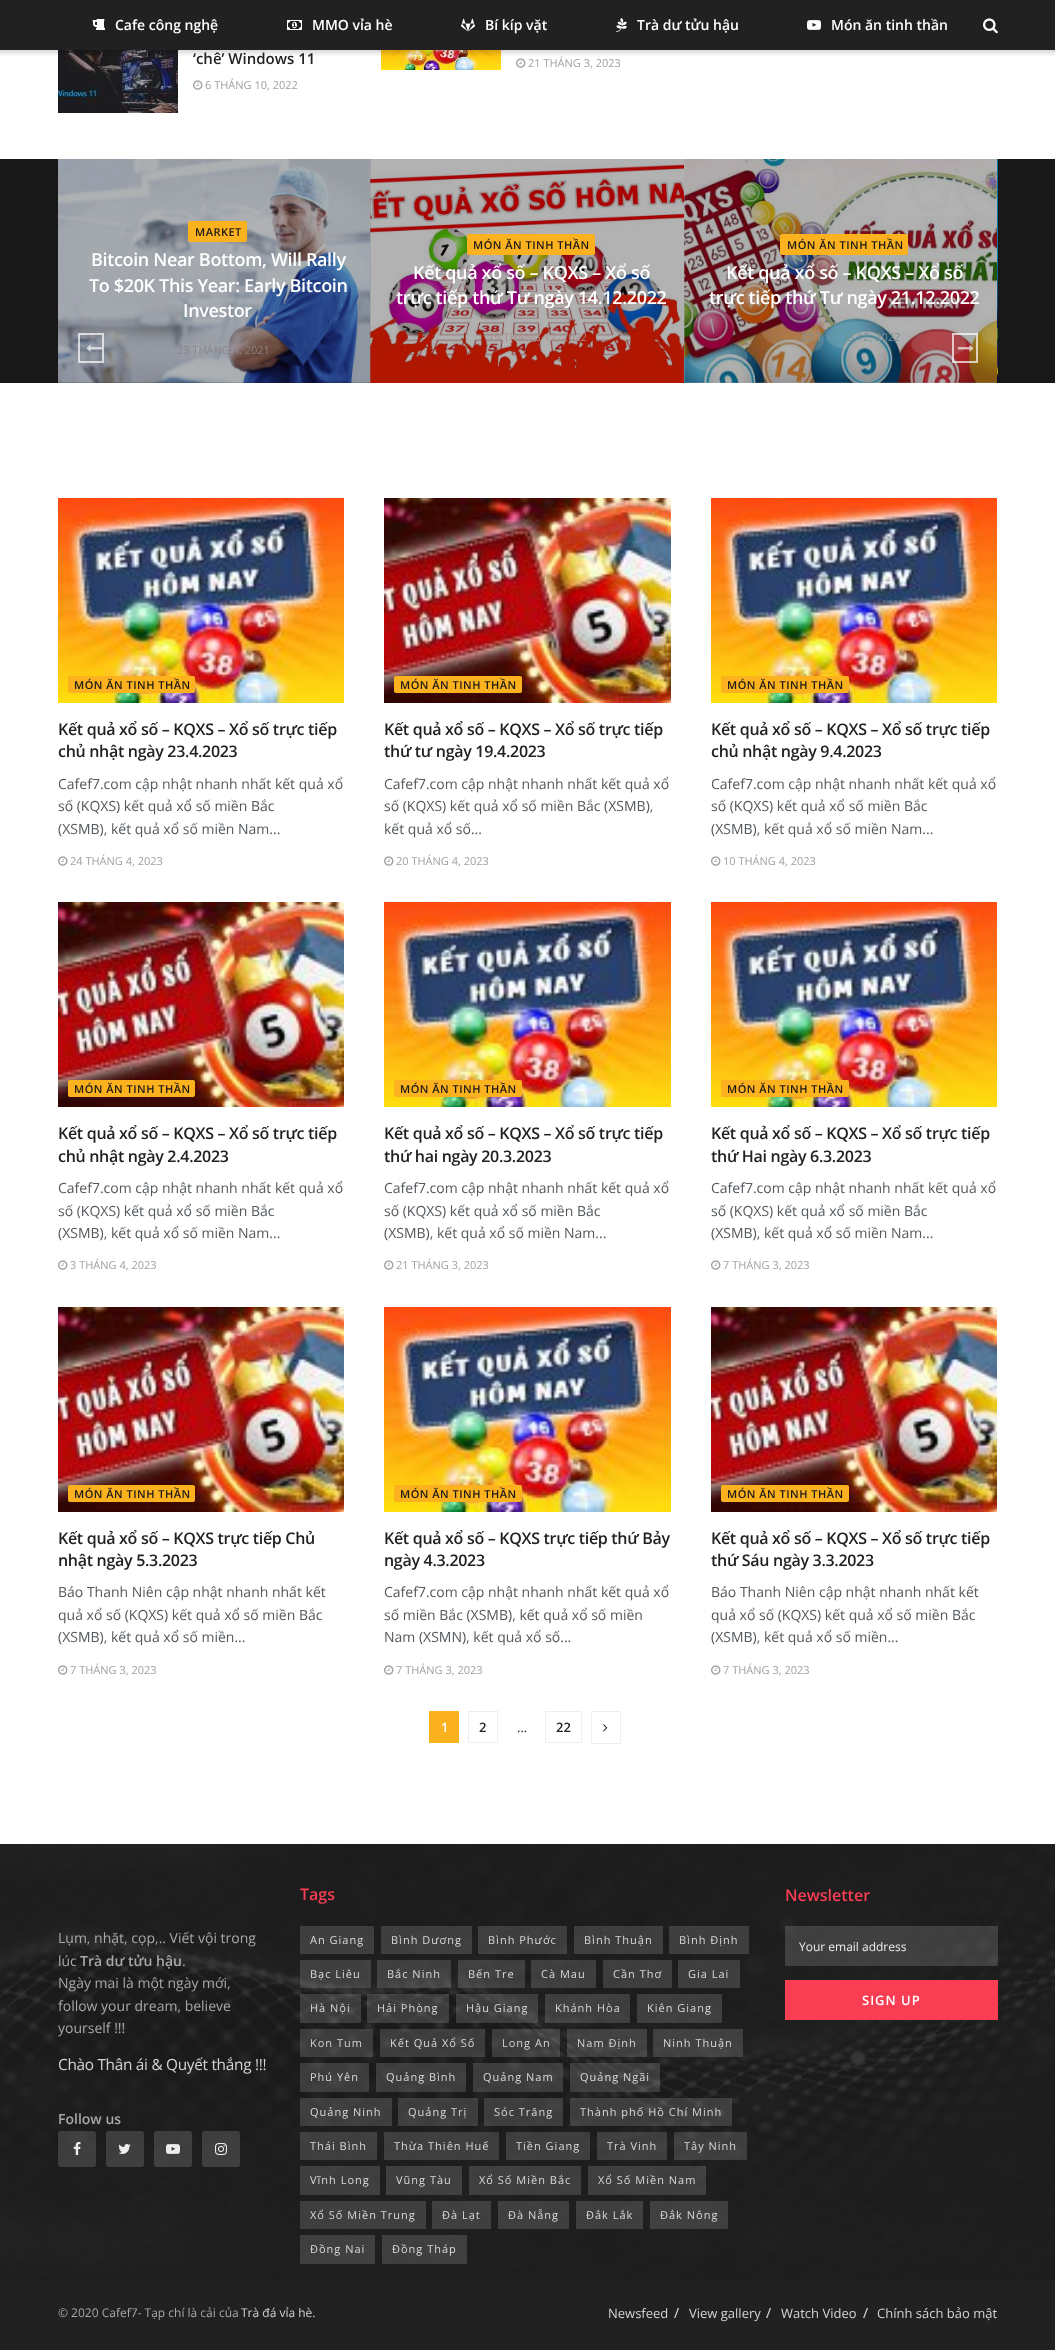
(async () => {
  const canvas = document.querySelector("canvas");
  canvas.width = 1055;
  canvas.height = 2350;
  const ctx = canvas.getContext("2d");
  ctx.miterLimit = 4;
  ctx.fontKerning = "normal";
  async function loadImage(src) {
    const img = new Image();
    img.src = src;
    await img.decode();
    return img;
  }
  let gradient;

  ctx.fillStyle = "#ffffff";
  ctx.fillRect(0, 0, 1055, 2350);
  ctx.fillStyle = "#212121";
  ctx.fillRect(0, 0, 1055, 50);
  ctx.drawImage(await loadImage("img/1.png"), 92, 19, 13, 11);
  ctx.drawImage(await loadImage("img/2.png"), 287, 20, 15, 10);
  ctx.drawImage(await loadImage("img/3.png"), 461, 18, 14, 14);
  ctx.drawImage(await loadImage("img/4.png"), 616, 18, 11, 14);
  ctx.drawImage(await loadImage("img/5.png"), 807, 20, 14, 10);
  ctx.drawImage(await loadImage("img/6.png"), 983, 18, 15, 16);
  ctx.drawImage(await loadImage("img/7.png"), 58, 50, 120, 63);
  ctx.drawImage(await loadImage("img/9.png"), 381, 50, 120, 20);
  gradient = ctx.createLinearGradient(528, 50, 528, 57);
  gradient.addColorStop(0, "rgba(0, 0, 0, 0.15)");
  gradient.addColorStop(1, "rgba(0, 0, 0, 0)");
  ctx.fillStyle = gradient;
  ctx.fillRect(0, 50, 1055, 6);
  ctx.drawImage(await loadImage("img/8.png"), 193, 80, 10, 10);
  ctx.drawImage(await loadImage("img/8.png"), 516, 58, 10, 10);
  ctx.fillStyle = "#191818";
  ctx.fillRect(0, 159, 1055, 224);
  ctx.drawImage(await loadImage("img/10.png"), 58, 159, 313, 224);
  ctx.fillStyle = "#fcb11e";
  ctx.beginPath();
  ctx.roundRect(188, 221, 59, 21, 2);
  ctx.fill();
  ctx.drawImage(await loadImage("img/11.png"), 370, 159, 314, 224);
  ctx.drawImage(await loadImage("img/12.png"), 370, 159, 314, 224);
  ctx.fillStyle = "rgba(0, 0, 0, 0.3)";
  ctx.fillRect(370, 159, 314, 224);
  ctx.fillStyle = "#fcb11e";
  ctx.beginPath();
  ctx.roundRect(467, 234, 128, 21, 2);
  ctx.fill();
  ctx.fillStyle = "#f7f7f7";
  ctx.fillRect(684, 159, 313, 224);
  ctx.drawImage(await loadImage("img/13.png"), 684, 159, 314, 224);
  ctx.fillStyle = "rgba(0, 0, 0, 0.3)";
  ctx.fillRect(684, 159, 313, 224);
  ctx.fillStyle = "#fcb11e";
  ctx.beginPath();
  ctx.roundRect(780, 234, 128, 21, 2);
  ctx.fill();
  ctx.drawImage(await loadImage("img/14.png"), 997, 159, 1, 224);
  ctx.fillStyle = "rgba(0, 0, 0, 0.3)";
  ctx.fillRect(997, 159, 1, 224);
  ctx.strokeStyle = "rgba(255, 255, 255, 0.7)";
  ctx.lineWidth = 2;
  ctx.strokeRect(79, 334, 24, 28);
  ctx.drawImage(await loadImage("img/15.png"), 86, 345, 16, 7);
  ctx.strokeRect(953, 334, 24, 28);
  ctx.drawImage(await loadImage("img/16.png"), 958, 344, 16, 8);
  ctx.drawImage(await loadImage("img/17.png"), 58, 498, 286, 205);
  ctx.fillStyle = "#fcb11e";
  ctx.beginPath();
  ctx.roundRect(68, 676, 127, 17, 2);
  ctx.fill();
  ctx.drawImage(await loadImage("img/8.png"), 58, 856, 10, 10);
  ctx.drawImage(await loadImage("img/18.png"), 384, 498, 287, 205);
  ctx.beginPath();
  ctx.roundRect(394, 676, 128, 17, 2);
  ctx.fill();
  ctx.drawImage(await loadImage("img/8.png"), 384, 856, 10, 10);
  ctx.drawImage(await loadImage("img/17.png"), 711, 498, 286, 205);
  ctx.beginPath();
  ctx.roundRect(721, 676, 128, 17, 2);
  ctx.fill();
  ctx.drawImage(await loadImage("img/8.png"), 711, 856, 10, 10);
  ctx.drawImage(await loadImage("img/19.png"), 58, 902, 286, 205);
  ctx.beginPath();
  ctx.roundRect(68, 1080, 127, 17, 2);
  ctx.fill();
  ctx.drawImage(await loadImage("img/8.png"), 58, 1260, 10, 10);
  ctx.drawImage(await loadImage("img/20.png"), 384, 902, 287, 205);
  ctx.beginPath();
  ctx.roundRect(394, 1080, 128, 17, 2);
  ctx.fill();
  ctx.drawImage(await loadImage("img/8.png"), 384, 1260, 10, 10);
  ctx.drawImage(await loadImage("img/21.png"), 711, 902, 286, 205);
  ctx.beginPath();
  ctx.roundRect(721, 1080, 128, 17, 2);
  ctx.fill();
  ctx.drawImage(await loadImage("img/8.png"), 711, 1260, 10, 10);
  ctx.drawImage(await loadImage("img/22.png"), 58, 1307, 286, 205);
  ctx.beginPath();
  ctx.roundRect(68, 1485, 127, 17, 2);
  ctx.fill();
  ctx.drawImage(await loadImage("img/8.png"), 58, 1665, 10, 10);
  ctx.drawImage(await loadImage("img/23.png"), 384, 1307, 287, 205);
  ctx.beginPath();
  ctx.roundRect(394, 1485, 128, 17, 2);
  ctx.fill();
  ctx.drawImage(await loadImage("img/8.png"), 384, 1665, 10, 10);
  ctx.drawImage(await loadImage("img/22.png"), 711, 1307, 286, 205);
  ctx.beginPath();
  ctx.roundRect(721, 1485, 128, 17, 2);
  ctx.fill();
  ctx.drawImage(await loadImage("img/8.png"), 711, 1665, 10, 10);
  ctx.fillRect(429, 1711, 30, 32);
  ctx.strokeStyle = "#eeeeee";
  ctx.lineWidth = 1;
  ctx.strokeRect(468.5, 1711.5, 29, 31);
  ctx.strokeRect(545.5, 1711.5, 36, 31);
  ctx.strokeRect(591.5, 1711.5, 29, 32);
  ctx.drawImage(await loadImage("img/24.png"), 603, 1724, 5, 8);
  ctx.drawImage(await loadImage("img/25.png"), 0, 1844, 1055, 436);
  ctx.fillStyle = "rgba(255, 255, 255, 0.15)";
  ctx.beginPath();
  ctx.roundRect(58, 2131, 38, 36, 3);
  ctx.fill();
  ctx.drawImage(await loadImage("img/26.png"), 73, 2142, 8, 13);
  ctx.beginPath();
  ctx.roundRect(106, 2131, 38, 36, 3);
  ctx.fill();
  ctx.drawImage(await loadImage("img/27.png"), 118, 2144, 13, 10);
  ctx.beginPath();
  ctx.roundRect(154, 2131, 38, 36, 3);
  ctx.fill();
  ctx.drawImage(await loadImage("img/28.png"), 166, 2144, 14, 10);
  ctx.beginPath();
  ctx.roundRect(202, 2131, 38, 36, 3);
  ctx.fill();
  ctx.drawImage(await loadImage("img/29.png"), 215, 2143, 12, 12);
  for (const [x, y, w, h, color] of [
    [300, 1926, 74, 28, "rgba(255, 255, 255, 0.15)"],
    [381, 1926, 91, 28, "rgba(255, 255, 255, 0.15)"],
    [478, 1926, 89, 28, "rgba(255, 255, 255, 0.15)"],
    [574, 1926, 89, 28, "rgba(255, 255, 255, 0.15)"],
    [669, 1926, 80, 28, "rgba(255, 255, 255, 0.15)"],
    [300, 1960, 71, 28, "rgba(255, 255, 255, 0.15)"],
    [377, 1960, 74, 28, "rgba(255, 255, 255, 0.15)"],
    [458, 1960, 67, 28, "rgba(255, 255, 255, 0.15)"],
    [531, 1960, 65, 28, "rgba(255, 255, 255, 0.15)"],
    [603, 1960, 69, 28, "rgba(255, 255, 255, 0.15)"],
    [678, 1960, 62, 28, "rgba(255, 255, 255, 0.15)"],
    [300, 1994, 61, 29, "rgba(255, 255, 255, 0.15)"],
    [367, 1994, 82, 29, "rgba(255, 255, 255, 0.15)"],
    [456, 1994, 82, 29, "rgba(255, 255, 255, 0.15)"],
    [545, 1994, 85, 29, "rgba(255, 255, 255, 0.15)"],
    [637, 1994, 85, 29, "rgba(255, 255, 255, 0.15)"],
    [300, 2029, 73, 28, "rgba(255, 255, 255, 0.15)"],
    [380, 2029, 105, 28, "rgba(255, 255, 255, 0.15)"],
    [492, 2029, 68, 28, "rgba(255, 255, 255, 0.15)"],
    [567, 2029, 80, 28, "rgba(255, 255, 255, 0.15)"],
    [653, 2029, 90, 28, "rgba(255, 255, 255, 0.15)"],
    [300, 2063, 69, 29, "rgba(255, 255, 255, 0.15)"],
    [376, 2063, 90, 29, "rgba(255, 255, 255, 0.15)"],
    [473, 2063, 90, 29, "rgba(255, 255, 255, 0.15)"],
    [570, 2063, 90, 29, "rgba(255, 255, 255, 0.15)"],
    [300, 2098, 92, 28, "rgba(255, 255, 255, 0.15)"],
    [398, 2098, 80, 28, "rgba(255, 255, 255, 0.15)"],
    [484, 2098, 79, 28, "rgba(255, 255, 255, 0.15)"],
    [570, 2098, 162, 28, "rgba(255, 255, 255, 0.15)"],
    [300, 2132, 77, 28, "rgba(255, 255, 255, 0.15)"],
    [384, 2132, 115, 28, "rgba(255, 255, 255, 0.15)"],
    [506, 2132, 84, 28, "rgba(255, 255, 255, 0.15)"],
    [597, 2132, 70, 28, "rgba(255, 255, 255, 0.15)"],
    [674, 2132, 73, 28, "rgba(255, 255, 255, 0.15)"],
    [300, 2166, 80, 29, "rgba(255, 255, 255, 0.15)"],
    [386, 2166, 76, 29, "rgba(255, 255, 255, 0.15)"],
    [469, 2166, 112, 29, "rgba(255, 255, 255, 0.15)"],
    [588, 2166, 118, 29, "rgba(255, 255, 255, 0.15)"],
    [300, 2201, 126, 28, "rgba(255, 255, 255, 0.15)"],
    [432, 2201, 59, 28, "rgba(255, 255, 255, 0.15)"],
    [498, 2201, 71, 28, "rgba(255, 255, 255, 0.15)"],
    [576, 2201, 67, 28, "rgba(255, 255, 255, 0.15)"],
    [650, 2201, 78, 28, "rgba(255, 255, 255, 0.15)"],
    [300, 2235, 75, 29, "rgba(255, 255, 255, 0.15)"],
    [382, 2235, 85, 29, "rgba(255, 255, 255, 0.15)"],
    [785, 1926, 213, 40, "rgba(255, 255, 255, 0.15)"],
    [785, 1980, 213, 40, "#f93d53"],
    [0, 2280, 1055, 70, "#212121"],
  ]) {
    ctx.fillStyle = color;
    ctx.fillRect(x, y, w, h);
  }
  ctx.font = "600 14px Open Sans";
  ctx.fillStyle = "#ffffff";
  for (const [text, x, y] of [
    ["Cafe công nghệ", 115, 30],
    ["MMO vỉa hè", 312, 30],
    ["Bí kíp vặt", 485, 30],
    ["Trà dư tửu hậu", 637, 30],
    ["Món ăn tinh thần", 831, 30],
  ]) {
    ctx.fillText(text, x, y);
  }
  ctx.font = "600 15px Open Sans";
  ctx.fillStyle = "#212121";
  ctx.fillText("‘chê’ Windows 11", 193, 64);
  ctx.font = "11px Open Sans";
  ctx.fillStyle = "#a0a0a0";
  ctx.fillText("6 THÁNG 10, 2022", 205, 89);
  ctx.fillText("21 THÁNG 3, 2023", 528, 67);
  ctx.letterSpacing = "0.5px";
  ctx.font = "600 11px Open Sans";
  ctx.fillStyle = "#191818";
  ctx.fillText("MARKET", 195, 236);
  ctx.letterSpacing = "-0.35px";
  ctx.font = "600 18px Open Sans";
  ctx.fillStyle = "#ffffff";
  for (const [text, x, y] of [
    ["Bitcoin Near Bottom, Will Rally", 91, 266],
    ["To $20K This Year: Early Bitcoin", 89, 292],
    ["Investor", 183, 317],
  ]) {
    ctx.fillText(text, x, y);
  }
  ctx.letterSpacing = "0px";
  ctx.font = "11px Open Sans";
  ctx.fillStyle = "#8b8486";
  ctx.fillText("23 THÁNG 4, 2021", 177, 354);
  ctx.letterSpacing = "0.5px";
  ctx.font = "600 11px Open Sans";
  ctx.fillStyle = "#191818";
  ctx.fillText("MÓN ĂN TINH THẦN", 473, 249);
  ctx.letterSpacing = "-0.35px";
  ctx.font = "600 18px Open Sans";
  ctx.fillStyle = "#ffffff";
  ctx.fillText("Kết quả xổ số – KQXS – Xổ số", 413, 279);
  ctx.fillText("trực tiếp thứ Tư ngày 14.12.2022", 396, 304);
  ctx.letterSpacing = "0px";
  ctx.font = "11px Open Sans";
  ctx.fillStyle = "#a98d8a";
  ctx.fillText("19 THÁNG 12, 2022", 488, 341);
  ctx.letterSpacing = "0.5px";
  ctx.font = "600 11px Open Sans";
  ctx.fillStyle = "#191818";
  ctx.fillText("MÓN ĂN TINH THẦN", 787, 249);
  ctx.letterSpacing = "-0.35px";
  ctx.font = "600 18px Open Sans";
  ctx.fillStyle = "#ffffff";
  ctx.fillText("Kết quả xổ số – KQXS – Xổ số", 726, 279);
  ctx.fillText("trực tiếp thứ Tư ngày 21.12.2022", 709, 304);
  ctx.letterSpacing = "0px";
  ctx.font = "11px Open Sans";
  ctx.fillStyle = "#799196";
  ctx.fillText("22 T", 801, 341);
  ctx.fillText("G 12, 2022", 846, 341);
  ctx.letterSpacing = "0.5px";
  ctx.font = "600 11px Open Sans";
  ctx.fillStyle = "#191818";
  ctx.fillText("MÓN ĂN TINH THẦN", 74, 689);
  ctx.letterSpacing = "-0.3px";
  ctx.font = "600 16px Open Sans";
  ctx.fillStyle = "#212121";
  ctx.fillText("Kết quả xổ số – KQXS – Xổ số trực tiếp", 58, 735);
  ctx.fillText("chủ nhật ngày 23.4.2023", 58, 757);
  ctx.letterSpacing = "0px";
  ctx.font = "14px Open Sans";
  ctx.fillStyle = "#53585c";
  for (const [text, x, y] of [
    ["Cafef7.com cập nhật nhanh nhất kết quả xổ", 58, 789],
    ["số (KQXS) kết quả xổ số miền Bắc", 58, 811],
    ["(XSMB), kết quả xổ số miền Nam...", 58, 834],
  ]) {
    ctx.fillText(text, x, y);
  }
  ctx.font = "11px Open Sans";
  ctx.fillStyle = "#a0a0a0";
  ctx.fillText("24 THÁNG 4, 2023", 70, 865);
  ctx.letterSpacing = "0.5px";
  ctx.font = "600 11px Open Sans";
  ctx.fillStyle = "#191818";
  ctx.fillText("MÓN ĂN TINH THẦN", 400, 689);
  ctx.letterSpacing = "-0.3px";
  ctx.font = "600 16px Open Sans";
  ctx.fillStyle = "#212121";
  ctx.fillText("Kết quả xổ số – KQXS – Xổ số trực tiếp", 384, 735);
  ctx.fillText("thứ tư ngày 19.4.2023", 384, 757);
  ctx.letterSpacing = "0px";
  ctx.font = "14px Open Sans";
  ctx.fillStyle = "#53585c";
  for (const [text, x, y] of [
    ["Cafef7.com cập nhật nhanh nhất kết quả xổ", 384, 789],
    ["số (KQXS) kết quả xổ số miền Bắc (XSMB),", 384, 811],
    ["kết quả xổ số...", 384, 834],
  ]) {
    ctx.fillText(text, x, y);
  }
  ctx.font = "11px Open Sans";
  ctx.fillStyle = "#a0a0a0";
  ctx.fillText("20 THÁNG 4, 2023", 396, 865);
  ctx.letterSpacing = "0.5px";
  ctx.font = "600 11px Open Sans";
  ctx.fillStyle = "#191818";
  ctx.fillText("MÓN ĂN TINH THẦN", 727, 689);
  ctx.letterSpacing = "-0.3px";
  ctx.font = "600 16px Open Sans";
  ctx.fillStyle = "#212121";
  ctx.fillText("Kết quả xổ số – KQXS – Xổ số trực tiếp", 711, 735);
  ctx.fillText("chủ nhật ngày 9.4.2023", 711, 757);
  ctx.letterSpacing = "0px";
  ctx.font = "14px Open Sans";
  ctx.fillStyle = "#53585c";
  for (const [text, x, y] of [
    ["Cafef7.com cập nhật nhanh nhất kết quả xổ", 711, 789],
    ["số (KQXS) kết quả xổ số miền Bắc", 711, 811],
    ["(XSMB), kết quả xổ số miền Nam...", 711, 834],
  ]) {
    ctx.fillText(text, x, y);
  }
  ctx.font = "11px Open Sans";
  ctx.fillStyle = "#a0a0a0";
  ctx.fillText("10 THÁNG 4, 2023", 723, 865);
  ctx.letterSpacing = "0.5px";
  ctx.font = "600 11px Open Sans";
  ctx.fillStyle = "#191818";
  ctx.fillText("MÓN ĂN TINH THẦN", 74, 1093);
  ctx.letterSpacing = "-0.3px";
  ctx.font = "600 16px Open Sans";
  ctx.fillStyle = "#212121";
  ctx.fillText("Kết quả xổ số – KQXS – Xổ số trực tiếp", 58, 1139);
  ctx.fillText("chủ nhật ngày 2.4.2023", 58, 1162);
  ctx.letterSpacing = "0px";
  ctx.font = "14px Open Sans";
  ctx.fillStyle = "#53585c";
  for (const [text, x, y] of [
    ["Cafef7.com cập nhật nhanh nhất kết quả xổ", 58, 1193],
    ["số (KQXS) kết quả xổ số miền Bắc", 58, 1216],
    ["(XSMB), kết quả xổ số miền Nam...", 58, 1238],
  ]) {
    ctx.fillText(text, x, y);
  }
  ctx.font = "11px Open Sans";
  ctx.fillStyle = "#a0a0a0";
  ctx.fillText("3 THÁNG 4, 2023", 70, 1269);
  ctx.letterSpacing = "0.5px";
  ctx.font = "600 11px Open Sans";
  ctx.fillStyle = "#191818";
  ctx.fillText("MÓN ĂN TINH THẦN", 400, 1093);
  ctx.letterSpacing = "-0.3px";
  ctx.font = "600 16px Open Sans";
  ctx.fillStyle = "#212121";
  ctx.fillText("Kết quả xổ số – KQXS – Xổ số trực tiếp", 384, 1139);
  ctx.fillText("thứ hai ngày 20.3.2023", 384, 1162);
  ctx.letterSpacing = "0px";
  ctx.font = "14px Open Sans";
  ctx.fillStyle = "#53585c";
  for (const [text, x, y] of [
    ["Cafef7.com cập nhật nhanh nhất kết quả xổ", 384, 1193],
    ["số (KQXS) kết quả xổ số miền Bắc", 384, 1216],
    ["(XSMB), kết quả xổ số miền Nam...", 384, 1238],
  ]) {
    ctx.fillText(text, x, y);
  }
  ctx.font = "11px Open Sans";
  ctx.fillStyle = "#a0a0a0";
  ctx.fillText("21 THÁNG 3, 2023", 396, 1269);
  ctx.letterSpacing = "0.5px";
  ctx.font = "600 11px Open Sans";
  ctx.fillStyle = "#191818";
  ctx.fillText("MÓN ĂN TINH THẦN", 727, 1093);
  ctx.letterSpacing = "-0.3px";
  ctx.font = "600 16px Open Sans";
  ctx.fillStyle = "#212121";
  ctx.fillText("Kết quả xổ số – KQXS – Xổ số trực tiếp", 711, 1139);
  ctx.fillText("thứ Hai ngày 6.3.2023", 711, 1162);
  ctx.letterSpacing = "0px";
  ctx.font = "14px Open Sans";
  ctx.fillStyle = "#53585c";
  for (const [text, x, y] of [
    ["Cafef7.com cập nhật nhanh nhất kết quả xổ", 711, 1193],
    ["số (KQXS) kết quả xổ số miền Bắc", 711, 1216],
    ["(XSMB), kết quả xổ số miền Nam...", 711, 1238],
  ]) {
    ctx.fillText(text, x, y);
  }
  ctx.font = "11px Open Sans";
  ctx.fillStyle = "#a0a0a0";
  ctx.fillText("7 THÁNG 3, 2023", 723, 1269);
  ctx.letterSpacing = "0.5px";
  ctx.font = "600 11px Open Sans";
  ctx.fillStyle = "#191818";
  ctx.fillText("MÓN ĂN TINH THẦN", 74, 1498);
  ctx.letterSpacing = "-0.3px";
  ctx.font = "600 16px Open Sans";
  ctx.fillStyle = "#212121";
  ctx.fillText("Kết quả xổ số – KQXS trực tiếp Chủ", 58, 1544);
  ctx.fillText("nhật ngày 5.3.2023", 58, 1566);
  ctx.letterSpacing = "0px";
  ctx.font = "14px Open Sans";
  ctx.fillStyle = "#53585c";
  for (const [text, x, y] of [
    ["Báo Thanh Niên cập nhật nhanh nhất kết", 58, 1597],
    ["quả xổ số (KQXS) kết quả xổ số miền Bắc", 58, 1620],
    ["(XSMB), kết quả xổ số miền...", 58, 1642],
  ]) {
    ctx.fillText(text, x, y);
  }
  ctx.font = "11px Open Sans";
  ctx.fillStyle = "#a0a0a0";
  ctx.fillText("7 THÁNG 3, 2023", 70, 1674);
  ctx.letterSpacing = "0.5px";
  ctx.font = "600 11px Open Sans";
  ctx.fillStyle = "#191818";
  ctx.fillText("MÓN ĂN TINH THẦN", 400, 1498);
  ctx.letterSpacing = "-0.3px";
  ctx.font = "600 16px Open Sans";
  ctx.fillStyle = "#212121";
  ctx.fillText("Kết quả xổ số – KQXS trực tiếp thứ Bảy", 384, 1544);
  ctx.fillText("ngày 4.3.2023", 384, 1566);
  ctx.letterSpacing = "0px";
  ctx.font = "14px Open Sans";
  ctx.fillStyle = "#53585c";
  for (const [text, x, y] of [
    ["Cafef7.com cập nhật nhanh nhất kết quả xổ", 384, 1597],
    ["số miền Bắc (XSMB), kết quả xổ số miền", 384, 1620],
    ["Nam (XSMN), kết quả xổ số...", 384, 1642],
  ]) {
    ctx.fillText(text, x, y);
  }
  ctx.font = "11px Open Sans";
  ctx.fillStyle = "#a0a0a0";
  ctx.fillText("7 THÁNG 3, 2023", 396, 1674);
  ctx.letterSpacing = "0.5px";
  ctx.font = "600 11px Open Sans";
  ctx.fillStyle = "#191818";
  ctx.fillText("MÓN ĂN TINH THẦN", 727, 1498);
  ctx.letterSpacing = "-0.3px";
  ctx.font = "600 16px Open Sans";
  ctx.fillStyle = "#212121";
  ctx.fillText("Kết quả xổ số – KQXS – Xổ số trực tiếp", 711, 1544);
  ctx.fillText("thứ Sáu ngày 3.3.2023", 711, 1566);
  ctx.letterSpacing = "0px";
  ctx.font = "14px Open Sans";
  ctx.fillStyle = "#53585c";
  for (const [text, x, y] of [
    ["Báo Thanh Niên cập nhật nhanh nhất kết", 711, 1597],
    ["quả xổ số (KQXS) kết quả xổ số miền Bắc", 711, 1620],
    ["(XSMB), kết quả xổ số miền...", 711, 1642],
  ]) {
    ctx.fillText(text, x, y);
  }
  ctx.font = "11px Open Sans";
  ctx.fillStyle = "#a0a0a0";
  ctx.fillText("7 THÁNG 3, 2023", 723, 1674);
  ctx.font = "600 13px Open Sans";
  ctx.fillStyle = "#ffffff";
  ctx.fillText("1", 441, 1732);
  ctx.fillStyle = "#212121";
  ctx.fillText("2", 479, 1732);
  ctx.font = "13px Open Sans";
  ctx.fillText("…", 517, 1732);
  ctx.font = "600 13px Open Sans";
  ctx.fillText("22", 556, 1732);
  ctx.font = "14px Open Sans";
  ctx.fillStyle = "#a8a8aa";
  ctx.fillText("Lụm, nhặt, cọp,.. Viết vội trong", 58, 1943);
  ctx.fillText("lúc", 58, 1966);
  ctx.font = "600 14px Open Sans";
  ctx.fillText("Trà dư tửu hậu", 80, 1966);
  ctx.font = "14px Open Sans";
  for (const [text, x, y] of [
    [".", 182, 1966],
    ["Ngày mai là một ngày mới,", 58, 1988],
    ["follow your dream, believe", 58, 2011],
    ["yourself !!!", 58, 2033],
  ]) {
    ctx.fillText(text, x, y);
  }
  ctx.letterSpacing = "-0.3px";
  ctx.font = "15.4px Open Sans";
  ctx.fillStyle = "#d3d3d3";
  ctx.fillText("Chào Thân ái & Quyết thắng !!!", 58, 2070);
  ctx.letterSpacing = "0px";
  ctx.font = "600 14px Open Sans";
  ctx.fillStyle = "#a8a8aa";
  ctx.fillText("Follow us", 58, 2124);
  ctx.font = "600 16px Open Sans";
  ctx.fillStyle = "#f93d53";
  ctx.fillText("Tags", 300, 1900);
  ctx.letterSpacing = "1px";
  ctx.font = "11px Open Sans";
  ctx.fillStyle = "#d9d9d9";
  for (const [text, x, y] of [
    ["An Giang", 310, 1944],
    ["Bình Dương", 391, 1944],
    ["Bình Phước", 488, 1944],
    ["Bình Thuận", 584, 1944],
    ["Bình Định", 679, 1944],
    ["Bạc Liêu", 310, 1978],
    ["Bắc Ninh", 387, 1978],
    ["Bến Tre", 468, 1978],
    ["Cà Mau", 541, 1978],
    ["Cần Thơ", 613, 1978],
    ["Gia Lai", 688, 1978],
    ["Hà Nội", 310, 2012],
    ["Hải Phòng", 377, 2012],
    ["Hậu Giang", 466, 2012],
    ["Khánh Hòa", 555, 2012],
    ["Kiên Giang", 647, 2012],
  ]) {
    ctx.fillText(text, x, y);
  }
  ctx.fillStyle = "#d3d3d3";
  ctx.fillText("Kon Tum", 310, 2047);
  ctx.fillStyle = "#d9d9d9";
  ctx.fillText("Kết Quả Xổ Số", 390, 2047);
  ctx.fillStyle = "#d3d3d3";
  ctx.fillText("Long An", 502, 2047);
  ctx.fillStyle = "#d9d9d9";
  for (const [text, x, y] of [
    ["Nam Định", 577, 2047],
    ["Ninh Thuận", 663, 2047],
    ["Phú Yên", 310, 2081],
    ["Quảng Bình", 386, 2081],
    ["Quảng Nam", 483, 2081],
    ["Quảng Ngãi", 580, 2081],
    ["Quảng Ninh", 310, 2116],
    ["Quảng Trị", 408, 2116],
    ["Sóc Trăng", 494, 2116],
    ["Thành phố Hồ Chí Minh", 580, 2116],
    ["Thái Bình", 310, 2150],
    ["Thừa Thiên Huế", 394, 2150],
    ["Tiền Giang", 516, 2150],
    ["Trà Vinh", 607, 2150],
    ["Tây Ninh", 684, 2150],
    ["Vĩnh Long", 310, 2184],
    ["Vũng Tàu", 396, 2184],
    ["Xổ Số Miền Bắc", 479, 2184],
    ["Xổ Số Miền Nam", 598, 2184],
    ["Xổ Số Miền Trung", 310, 2219],
    ["Đà Lạt", 442, 2219],
    ["Đà Nẵng", 508, 2219],
    ["Đắk Lắk", 586, 2219],
    ["Đắk Nông", 660, 2219],
    ["Đồng Nai", 310, 2253],
    ["Đồng Tháp", 392, 2253],
  ]) {
    ctx.fillText(text, x, y);
  }
  ctx.letterSpacing = "0px";
  ctx.font = "600 16px Open Sans";
  ctx.fillStyle = "#f93d53";
  ctx.fillText("Newsletter", 785, 1901);
  ctx.font = "12px Open Sans";
  ctx.fillStyle = "#eeeeee";
  ctx.fillText("Your email address", 799, 1951);
  ctx.letterSpacing = "1px";
  ctx.font = "600 13px Open Sans";
  ctx.fillStyle = "#ffffff";
  ctx.fillText("SIGN UP", 862, 2005);
  ctx.letterSpacing = "0px";
  ctx.font = "12px Open Sans";
  ctx.fillStyle = "#a8a8aa";
  ctx.fillText("© 2020 Cafef7- Tạp chí là cải của", 58, 2317);
  ctx.fillStyle = "#d3d3d3";
  ctx.fillText("Trà đá vỉa hè.", 241, 2317);
  ctx.font = "13px Open Sans";
  ctx.fillText("Newsfeed", 608, 2318);
  ctx.font = "14px Open Sans";
  ctx.fillStyle = "#e0e0e0";
  ctx.fillText("/", 674, 2318);
  ctx.font = "13px Open Sans";
  ctx.fillStyle = "#d3d3d3";
  ctx.fillText("View gallery", 689, 2318);
  ctx.font = "14px Open Sans";
  ctx.fillStyle = "#e0e0e0";
  ctx.fillText("/", 766, 2318);
  ctx.font = "13px Open Sans";
  ctx.fillStyle = "#d3d3d3";
  ctx.fillText("Watch Video", 781, 2318);
  ctx.font = "14px Open Sans";
  ctx.fillStyle = "#e0e0e0";
  ctx.fillText("/", 863, 2318);
  ctx.font = "13px Open Sans";
  ctx.fillStyle = "#d3d3d3";
  ctx.fillText("Chính sách bảo mật", 877, 2318);
})();
